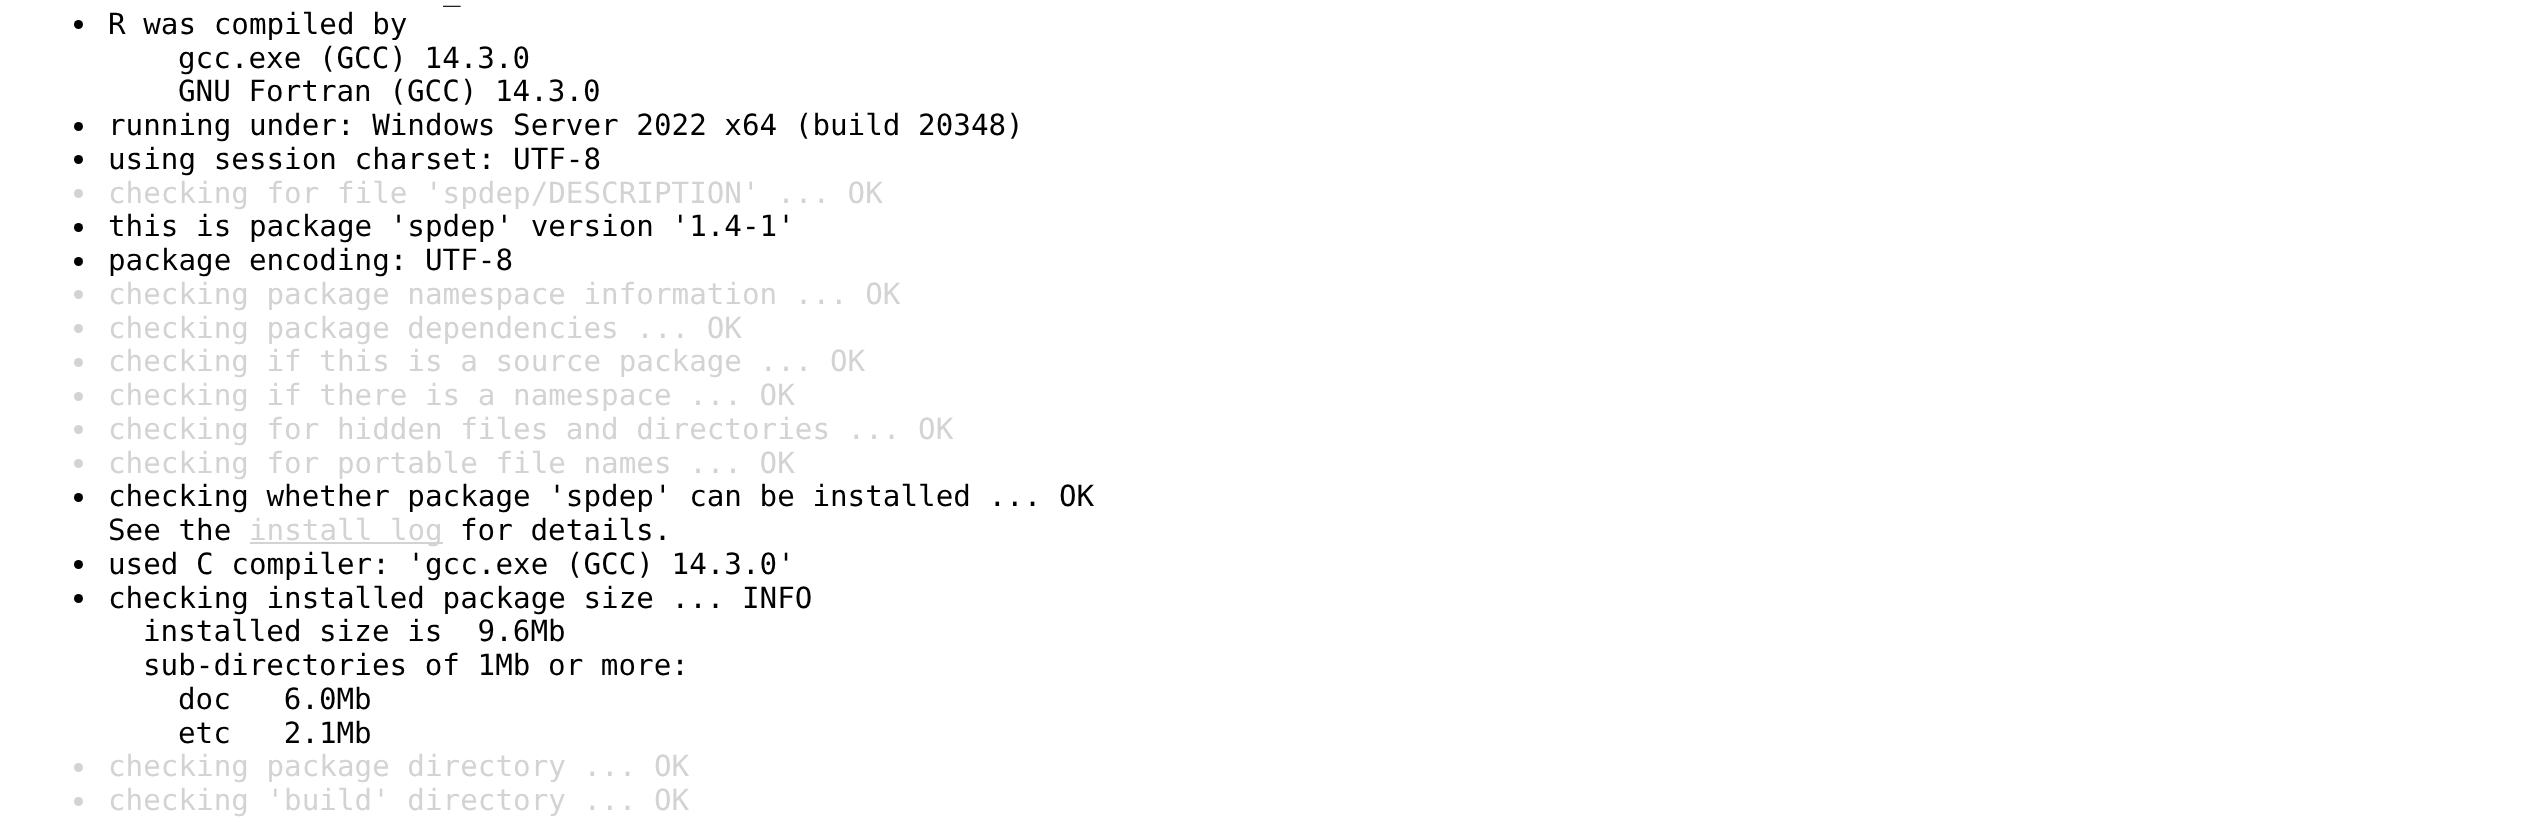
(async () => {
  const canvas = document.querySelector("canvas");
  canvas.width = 2523;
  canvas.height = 827;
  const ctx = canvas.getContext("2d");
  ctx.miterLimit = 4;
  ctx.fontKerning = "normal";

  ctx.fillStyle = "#ffffff";
  ctx.fillRect(0, 0, 2523, 827);
  ctx.fillStyle = "#000000";
  ctx.beginPath();
  ctx.arc(78.5, 24.5, 4.5, 0, Math.PI * 2);
  ctx.fill();
  ctx.beginPath();
  ctx.arc(78.5, 126.5, 4.5, 0, Math.PI * 2);
  ctx.fill();
  ctx.beginPath();
  ctx.arc(78.5, 159.5, 4.5, 0, Math.PI * 2);
  ctx.fill();
  ctx.fillStyle = "#d3d3d3";
  ctx.beginPath();
  ctx.arc(78.5, 193.5, 4.5, 0, Math.PI * 2);
  ctx.fill();
  ctx.fillStyle = "#000000";
  ctx.beginPath();
  ctx.arc(78.5, 227.5, 4.5, 0, Math.PI * 2);
  ctx.fill();
  ctx.beginPath();
  ctx.arc(78.5, 261.5, 4.5, 0, Math.PI * 2);
  ctx.fill();
  ctx.fillStyle = "#d3d3d3";
  ctx.beginPath();
  ctx.arc(78.5, 294.5, 4.5, 0, Math.PI * 2);
  ctx.fill();
  ctx.beginPath();
  ctx.arc(78.5, 328.5, 4.5, 0, Math.PI * 2);
  ctx.fill();
  ctx.beginPath();
  ctx.arc(78.5, 362.5, 4.5, 0, Math.PI * 2);
  ctx.fill();
  ctx.beginPath();
  ctx.arc(78.5, 396.5, 4.5, 0, Math.PI * 2);
  ctx.fill();
  ctx.beginPath();
  ctx.arc(78.5, 429.5, 4.5, 0, Math.PI * 2);
  ctx.fill();
  ctx.beginPath();
  ctx.arc(78.5, 463.5, 4.5, 0, Math.PI * 2);
  ctx.fill();
  ctx.fillStyle = "#000000";
  ctx.beginPath();
  ctx.arc(78.5, 497.5, 4.5, 0, Math.PI * 2);
  ctx.fill();
  ctx.fillStyle = "#d3d3d3";
  ctx.fillRect(250, 542, 193, 2);
  ctx.fillStyle = "#000000";
  ctx.beginPath();
  ctx.arc(78.5, 564.5, 4.5, 0, Math.PI * 2);
  ctx.fill();
  ctx.beginPath();
  ctx.arc(78.5, 598.5, 4.5, 0, Math.PI * 2);
  ctx.fill();
  ctx.fillStyle = "#d3d3d3";
  ctx.beginPath();
  ctx.arc(78.5, 767.5, 4.5, 0, Math.PI * 2);
  ctx.fill();
  ctx.beginPath();
  ctx.arc(78.5, 801.5, 4.5, 0, Math.PI * 2);
  ctx.fill();
  ctx.font = "29.25px DejaVu Sans Mono";
  ctx.fillStyle = "#000000";
  for (const [text, x, y] of [
    ["_", 443, 0],
    ["R was compiled by", 108, 34],
    ["gcc.exe (GCC) 14.3.0", 178, 68],
    ["GNU Fortran (GCC) 14.3.0", 178, 101],
    ["running under: Windows Server 2022 x64 (build 20348)", 108, 135],
    ["using session charset: UTF-8", 108, 169],
  ]) {
    ctx.fillText(text, x, y);
  }
  ctx.fillStyle = "#d3d3d3";
  ctx.fillText("checking for file 'spdep/DESCRIPTION' ... OK", 108, 203);
  ctx.fillStyle = "#000000";
  ctx.fillText("this is package 'spdep' version '1.4-1'", 108, 236);
  ctx.fillText("package encoding: UTF-8", 108, 270);
  ctx.fillStyle = "#d3d3d3";
  for (const [text, x, y] of [
    ["checking package namespace information ... OK", 108, 304],
    ["checking package dependencies ... OK", 108, 338],
    ["checking if this is a source package ... OK", 108, 371],
    ["checking if there is a namespace ... OK", 108, 405],
    ["checking for hidden files and directories ... OK", 108, 439],
    ["checking for portable file names ... OK", 108, 473],
  ]) {
    ctx.fillText(text, x, y);
  }
  ctx.fillStyle = "#000000";
  ctx.fillText("checking whether package 'spdep' can be installed ... OK", 108, 506);
  ctx.fillText("See the", 108, 540);
  ctx.fillStyle = "#d3d3d3";
  ctx.fillText("install log", 249, 540);
  ctx.fillStyle = "#000000";
  for (const [text, x, y] of [
    ["for details.", 460, 540],
    ["used C compiler: 'gcc.exe (GCC) 14.3.0'", 108, 574],
    ["checking installed package size ... INFO", 108, 608],
    ["installed size is  9.6Mb", 143, 641],
    ["sub-directories of 1Mb or more:", 143, 675],
    ["doc   6.0Mb", 178, 709],
    ["etc   2.1Mb", 178, 743],
  ]) {
    ctx.fillText(text, x, y);
  }
  ctx.fillStyle = "#d3d3d3";
  ctx.fillText("checking package directory ... OK", 108, 776);
  ctx.fillText("checking 'build' directory ... OK", 108, 810);
})();
